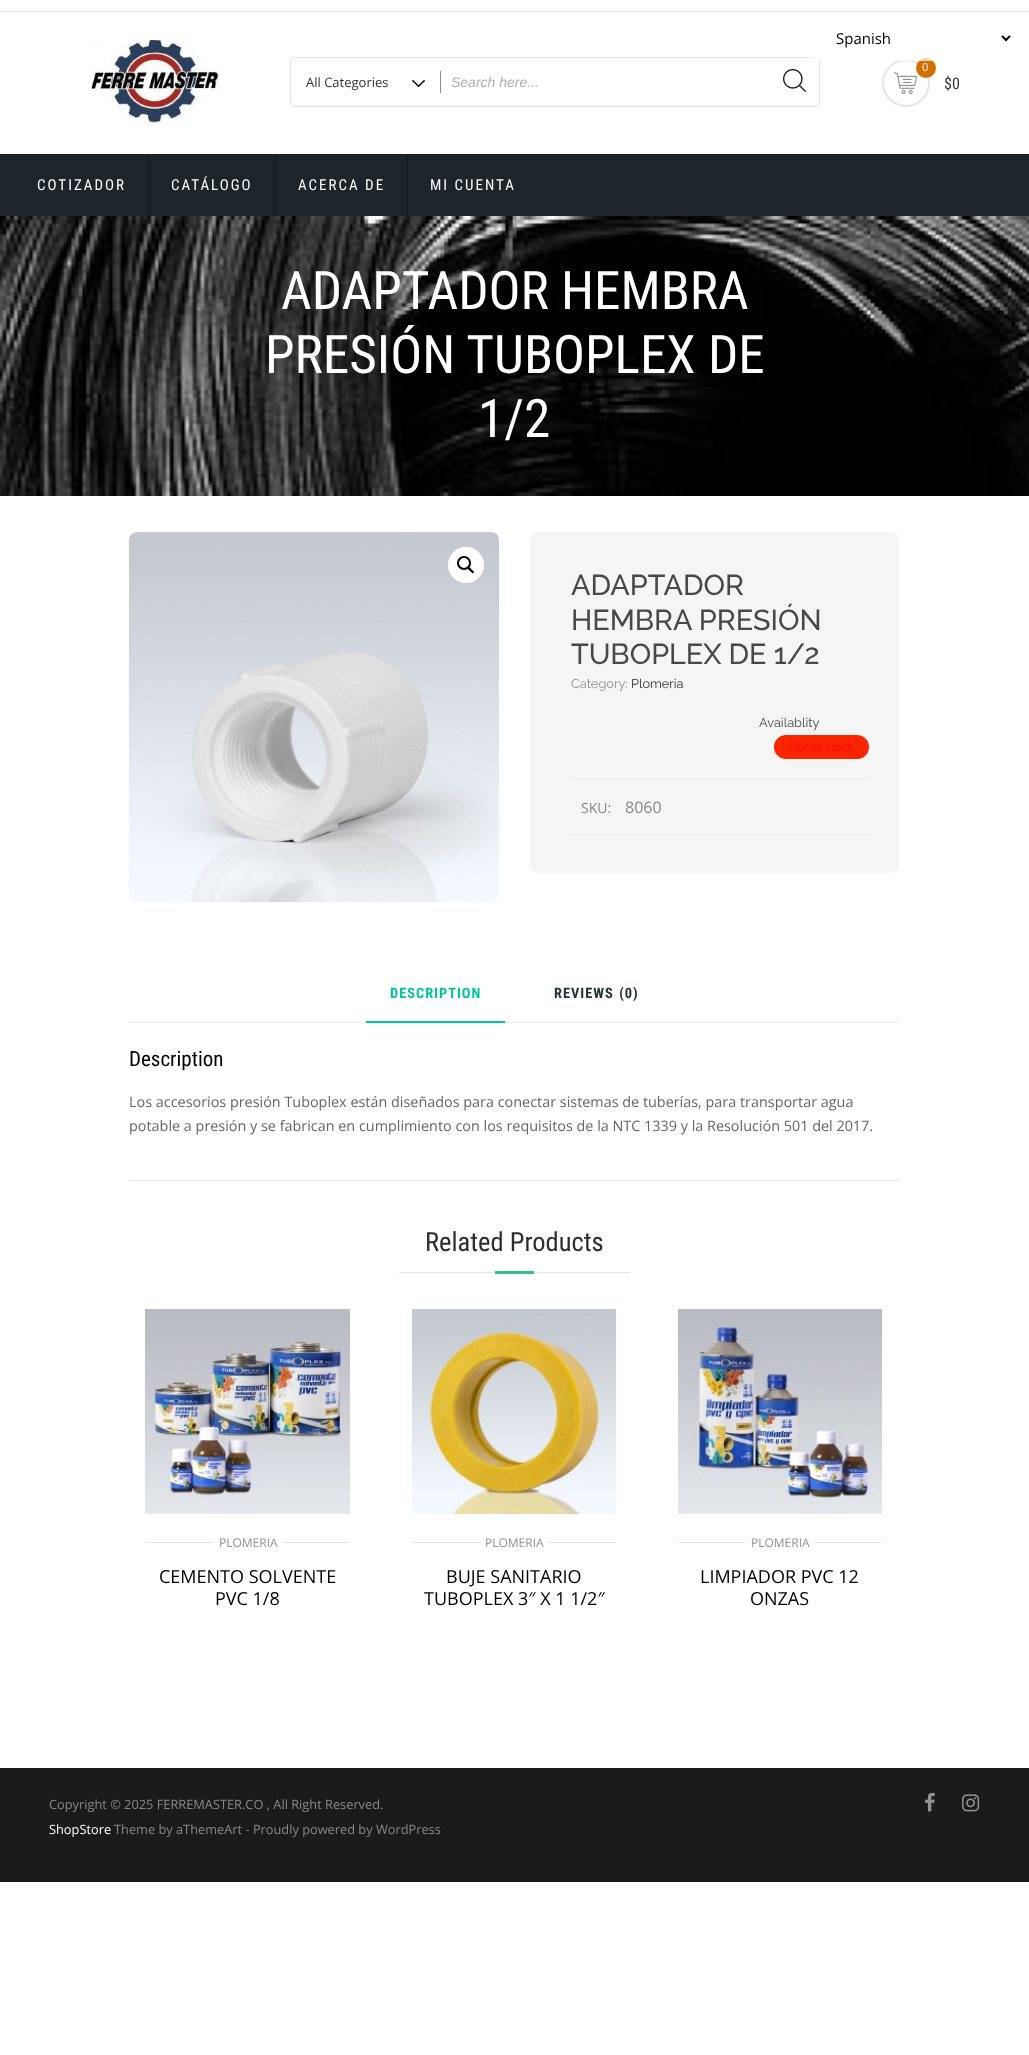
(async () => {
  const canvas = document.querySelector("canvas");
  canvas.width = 1029;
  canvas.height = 2055;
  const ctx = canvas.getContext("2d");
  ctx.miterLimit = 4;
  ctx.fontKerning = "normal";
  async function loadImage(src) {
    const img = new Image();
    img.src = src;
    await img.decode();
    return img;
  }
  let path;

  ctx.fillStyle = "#ffffff";
  ctx.fillRect(0, 0, 1029, 2055);
  ctx.beginPath();
  ctx.roundRect(290.5, 57.5, 529, 49, 4.5);
  ctx.strokeStyle = "#e2e1e6";
  ctx.stroke();
  ctx.beginPath();
  ctx.arc(906, 83, 23, 0, Math.PI * 2);
  ctx.strokeStyle = "#e5e5e5";
  ctx.lineWidth = 2;
  ctx.stroke();
  ctx.drawImage(await loadImage("img/4.png"), 894, 72, 23, 22);
  ctx.fillStyle = "#d16f00";
  ctx.beginPath();
  ctx.arc(926, 68, 10, 0, Math.PI * 2);
  ctx.fill();
  ctx.fillStyle = "rgba(255, 255, 255, 0.7)";
  ctx.beginPath();
  ctx.roundRect(810, 15, 204, 46, 3);
  ctx.fill();
  path = new Path2D("M1002 36L1006 40L1010 36");
  ctx.strokeStyle = "#000000";
  ctx.stroke(path);
  ctx.fillStyle = "#e5e5e5";
  ctx.fillRect(0, 11, 1029, 1);
  ctx.drawImage(await loadImage("img/1.png"), 88, 40, 132, 83);
  ctx.drawImage(await loadImage("img/2.png"), 412, 80, 13, 7);
  ctx.fillStyle = "#8e8b8c";
  ctx.fillRect(440, 71, 1, 22);
  ctx.drawImage(await loadImage("img/3.png"), 783, 69, 23, 23);
  for (const [x, y, w, h, color] of [
    [0, 154, 1029, 62, "#1d242a"],
    [148, 154, 1, 62, "#14181d"],
    [275, 154, 1, 62, "#14181d"],
    [407, 154, 1, 62, "#14181d"],
  ]) {
    ctx.fillStyle = color;
    ctx.fillRect(x, y, w, h);
  }
  ctx.drawImage(await loadImage("img/5.png"), 0, 216, 1029, 280);
  ctx.drawImage(await loadImage("img/6.png"), 129, 532, 370, 370);
  ctx.fillStyle = "#ffffff";
  ctx.beginPath();
  ctx.arc(466, 565, 18, 0, Math.PI * 2);
  ctx.fill();
  ctx.beginPath();
  ctx.arc(464, 563, 6, 0, Math.PI * 2);
  ctx.stroke();
  ctx.fillStyle = "#000000";
  path = new Path2D("M468 567.5C469.5 566 471 569 471.5 569.5C472 570 475 572 473.5 573C472.5 574 471 571.5 470 571C469.5 570.5 467 568.5 468 567.5Z");
  ctx.fill(path);
  ctx.fillStyle = "#f5f5f5";
  ctx.beginPath();
  ctx.roundRect(530, 532, 369, 341, 8);
  ctx.fill();
  ctx.fillStyle = "#f92400";
  ctx.beginPath();
  ctx.roundRect(774, 735, 95, 24, 12);
  ctx.fill();
  for (const [x, y, w, h, color] of [
    [571, 779, 298, 1, "#e9e9e9"],
    [571, 834, 298, 1, "#e9e9e9"],
    [129, 1022, 770, 1, "#e9e9e9"],
    [366, 1021, 139, 2, "#02c39a"],
    [129, 1180, 770, 1, "#e9e9e9"],
    [399, 1272, 231, 1, "#e6e6e6"],
    [495, 1271, 39, 3, "#37bf91"],
  ]) {
    ctx.fillStyle = color;
    ctx.fillRect(x, y, w, h);
  }
  ctx.drawImage(await loadImage("img/7.png"), 145, 1309, 205, 205);
  ctx.fillStyle = "#e5e5e5";
  ctx.fillRect(145, 1542, 205, 1);
  ctx.fillStyle = "#ffffff";
  ctx.fillRect(214, 1542, 68, 1);
  ctx.drawImage(await loadImage("img/8.png"), 412, 1309, 204, 205);
  ctx.fillStyle = "#e5e5e5";
  ctx.fillRect(412, 1542, 204, 1);
  ctx.fillStyle = "#ffffff";
  ctx.fillRect(480, 1542, 68, 1);
  ctx.drawImage(await loadImage("img/9.png"), 678, 1309, 204, 205);
  for (const [x, y, w, h, color] of [
    [678, 1542, 204, 1, "#e5e5e5"],
    [746, 1542, 68, 1, "#ffffff"],
    [0, 1768, 1029, 114, "#1a1b1b"],
  ]) {
    ctx.fillStyle = color;
    ctx.fillRect(x, y, w, h);
  }
  ctx.drawImage(await loadImage("img/10.png"), 925, 1792, 10, 20);
  ctx.drawImage(await loadImage("img/11.png"), 962, 1794, 18, 18);
  ctx.font = "15px Open Sans";
  ctx.fillStyle = "#000000";
  ctx.fillText("Spanish", 836, 44);
  ctx.font = "13px Open Sans";
  ctx.fillStyle = "#333333";
  ctx.fillText("All Categories", 306, 87);
  ctx.font = "italic 14px Liberation Sans";
  ctx.fillStyle = "#aeaeae";
  ctx.fillText("Search here...", 451, 87);
  ctx.font = "11px Open Sans";
  ctx.fillStyle = "#f4f4f4";
  ctx.fillText("0", 922, 71);
  ctx.font = "16px Roboto Condensed";
  ctx.fillStyle = "#333333";
  ctx.fillText("$0", 944, 89);
  ctx.letterSpacing = "2px";
  ctx.font = "15px Roboto Condensed";
  ctx.fillStyle = "#ffffff";
  for (const [text, x, y] of [
    ["COTIZADOR", 37, 190],
    ["CATÁLOGO", 171, 190],
    ["ACERCA DE", 298, 190],
    ["MI CUENTA", 430, 190],
  ]) {
    ctx.fillText(text, x, y);
  }
  ctx.letterSpacing = "0px";
  ctx.font = "53.25px Roboto Condensed";
  for (const [text, x, y] of [
    ["ADAPTADOR HEMBRA", 281, 309],
    ["PRESIÓN TUBOPLEX DE", 265, 373],
    ["1/2", 478, 437],
  ]) {
    ctx.fillText(text, x, y);
  }
  ctx.font = "500 28.75px Raleway";
  ctx.fillStyle = "#484848";
  for (const [text, x, y] of [
    ["ADAPTADOR", 571, 595],
    ["HEMBRA PRESIÓN", 571, 630],
    ["TUBOPLEX DE 1/2", 571, 664],
  ]) {
    ctx.fillText(text, x, y);
  }
  ctx.font = "12.8px Raleway";
  ctx.fillStyle = "#919191";
  ctx.fillText("Category:", 571, 688);
  ctx.fillStyle = "#333333";
  ctx.fillText("Plomeria", 631, 688);
  ctx.fillStyle = "#484848";
  ctx.fillText("Availablity", 759, 727);
  ctx.font = "11.75px Raleway";
  ctx.fillStyle = "#ff0000";
  ctx.fillText("Out of stock", 789, 751);
  ctx.font = "14px Open Sans";
  ctx.fillStyle = "#888888";
  ctx.fillText("SKU:", 581, 813);
  ctx.font = "16px Open Sans";
  ctx.fillText("8060", 625, 813);
  ctx.letterSpacing = "1px";
  ctx.font = "bold 14.4px Roboto Condensed";
  ctx.fillStyle = "#02c39a";
  ctx.fillText("DESCRIPTION", 390, 998);
  ctx.wordSpacing = "1px";
  ctx.fillStyle = "#253237";
  ctx.fillText("REVIEWS (0)", 554, 998);
  ctx.letterSpacing = "0px";
  ctx.wordSpacing = "0px";
  ctx.font = "21px Roboto Condensed";
  ctx.fillStyle = "#000000";
  ctx.fillText("Description", 129, 1066);
  ctx.font = "14.4px Open Sans";
  ctx.fillStyle = "#656565";
  ctx.fillText("Los accesorios presión Tuboplex están diseñados para conectar sistemas de tuberías, para transportar agua", 129, 1107);
  ctx.fillText("potable a presión y se fabrican en cumplimiento con los requisitos de la NTC 1339 y la Resolución 501 del 2017.", 129, 1131);
  ctx.font = "26.5px Roboto Condensed";
  ctx.fillStyle = "#2d2d2d";
  ctx.fillText("Related Products", 425, 1251);
  ctx.font = "12px Open Sans";
  ctx.fillStyle = "#919191";
  ctx.fillText("PLOMERIA", 219, 1547);
  ctx.font = "18px Open Sans";
  ctx.fillStyle = "#000000";
  ctx.fillText("CEMENTO SOLVENTE", 159, 1583);
  ctx.fillText("PVC 1/8", 215, 1605);
  ctx.font = "12px Open Sans";
  ctx.fillStyle = "#919191";
  ctx.fillText("PLOMERIA", 485, 1547);
  ctx.font = "18px Open Sans";
  ctx.fillStyle = "#000000";
  ctx.fillText("BUJE SANITARIO", 446, 1583);
  ctx.fillText("TUBOPLEX 3″ X 1 1/2″", 424, 1605);
  ctx.font = "12px Open Sans";
  ctx.fillStyle = "#919191";
  ctx.fillText("PLOMERIA", 751, 1547);
  ctx.font = "18px Open Sans";
  ctx.fillStyle = "#000000";
  ctx.fillText("LIMPIADOR PVC 12", 700, 1583);
  ctx.fillText("ONZAS", 750, 1605);
  ctx.font = "12.8px Open Sans";
  ctx.fillStyle = "#888888";
  ctx.fillText("Copyright © 2025 FERREMASTER.CO , All Right Reserved.", 49, 1809);
  ctx.fillStyle = "#ffffff";
  ctx.fillText("ShopStore", 49, 1834);
  ctx.fillStyle = "#888888";
  ctx.fillText("Theme by aThemeArt - Proudly powered by WordPress", 114, 1834);
})();
